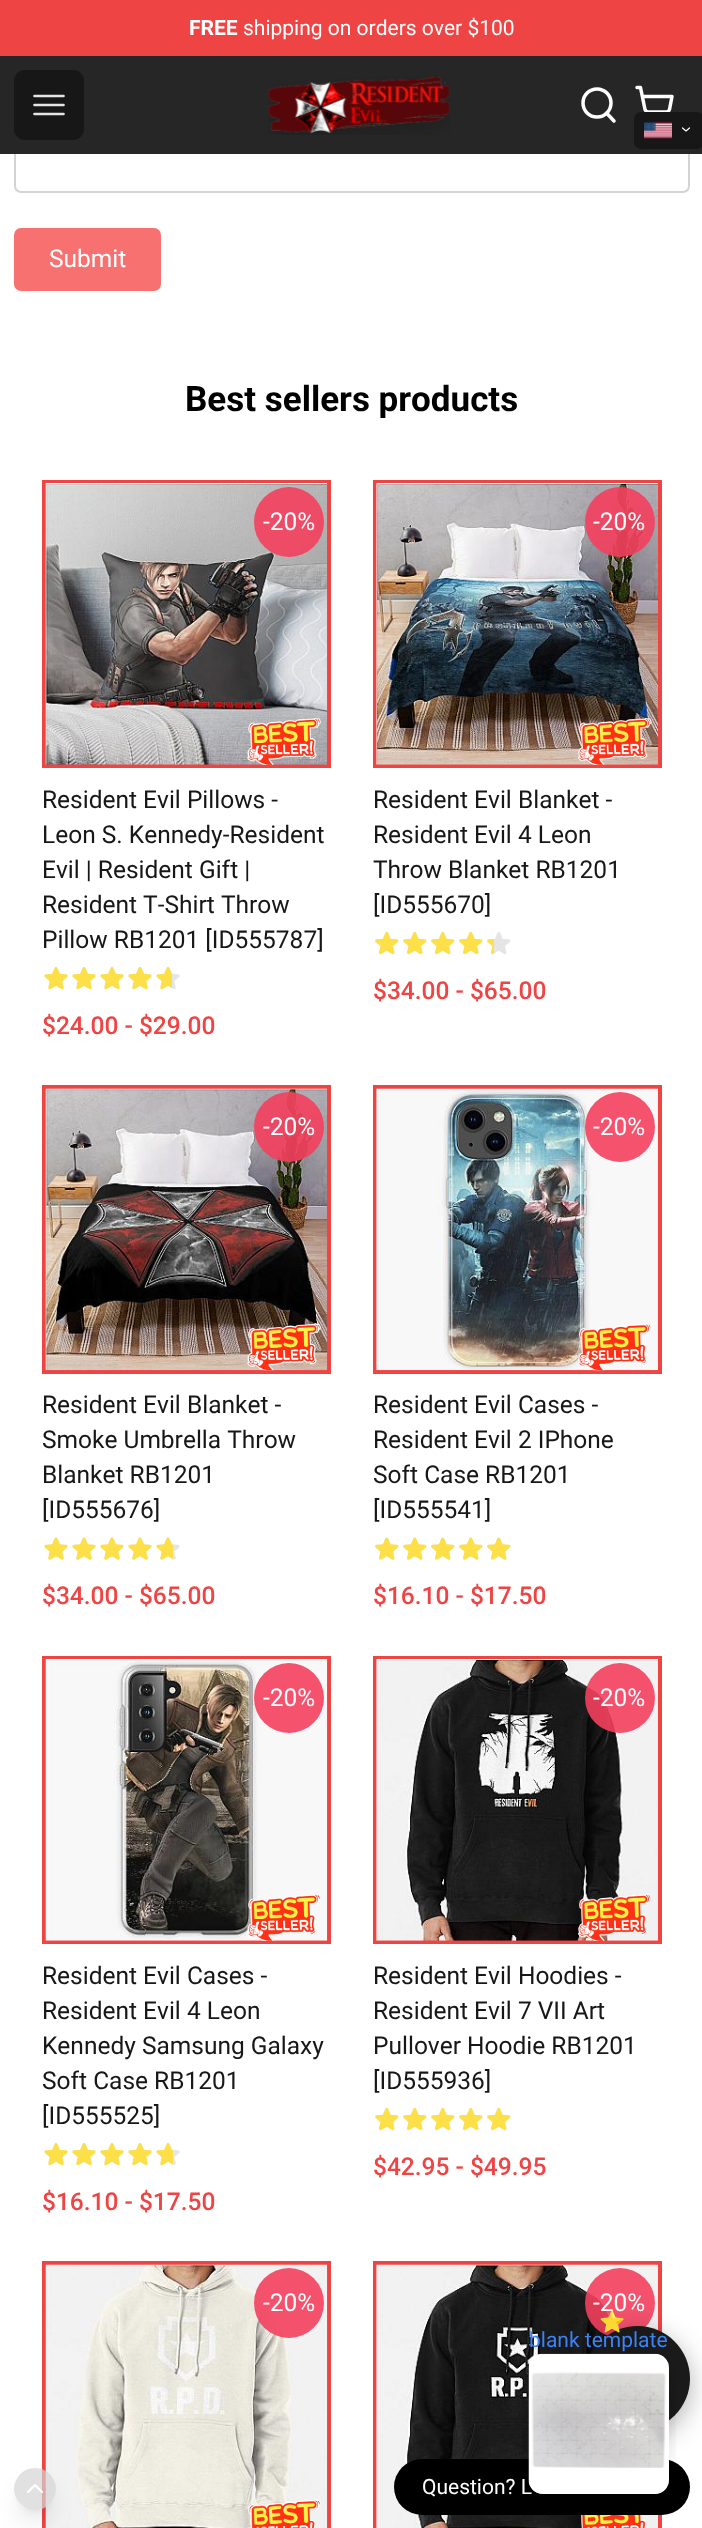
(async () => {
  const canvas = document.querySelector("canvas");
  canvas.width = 702;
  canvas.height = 2528;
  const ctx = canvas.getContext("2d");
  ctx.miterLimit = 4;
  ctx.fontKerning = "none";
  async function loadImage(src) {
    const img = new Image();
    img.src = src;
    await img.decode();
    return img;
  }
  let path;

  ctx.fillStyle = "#ffffff";
  ctx.fillRect(0, 0, 702, 2528);
  ctx.fillStyle = "#ef4444";
  ctx.fillRect(0, 0, 702, 56);
  ctx.beginPath();
  ctx.roundRect(15, 120, 674, 72, 6);
  ctx.strokeStyle = "#d4d4d4";
  ctx.lineWidth = 2;
  ctx.stroke();
  ctx.fillStyle = "#262626";
  ctx.fillRect(0, 56, 702, 98);
  ctx.fillStyle = "#171717";
  ctx.beginPath();
  ctx.roundRect(14, 70, 70, 70, 11);
  ctx.fill();
  path = new Path2D("M34.5 96H63.5M34.5 105H63.5M34.5 114H63.5");
  ctx.strokeStyle = "#e5e5e5";
  ctx.lineWidth = 2.6;
  ctx.lineCap = "round";
  ctx.lineJoin = "round";
  ctx.stroke(path);
  ctx.drawImage(await loadImage("img/1.png"), 268, 76, 182, 59);
  path = new Path2D("M614 121L606.5 113");
  ctx.strokeStyle = "#ffffff";
  ctx.lineWidth = 3.5;
  ctx.stroke(path);
  ctx.beginPath();
  ctx.arc(597, 103, 14, 0, Math.PI * 2);
  ctx.stroke();
  path = new Path2D("M637 87.5H640.5L645 109.5C645.5 111 647 112 648.5 112H666C667.5 112 669 111 669.5 109.5L672 96.5H642.5");
  ctx.stroke(path);
  ctx.beginPath();
  ctx.roundRect(634, 112, 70, 37, 7);
  ctx.fill();
  ctx.drawImage(await loadImage("img/2.png"), 644, 122, 28, 17);
  path = new Path2D("M682.5 128L686 131L689.5 128");
  ctx.lineWidth = 1.2;
  ctx.stroke(path);
  ctx.fillStyle = "#f87171";
  ctx.beginPath();
  ctx.roundRect(14, 228, 147, 63, 7);
  ctx.fill();
  ctx.strokeStyle = "#ef4444";
  ctx.lineWidth = 4;
  ctx.lineJoin = "miter";
  ctx.strokeRect(44, 482, 285, 284);
  ctx.drawImage(await loadImage("img/3.png"), 45, 483, 283, 282);
  ctx.drawImage(await loadImage("img/4.png"), 247, 717, 74, 48);
  ctx.fillStyle = "rgba(244, 63, 94, 0.9)";
  ctx.beginPath();
  ctx.arc(289, 522, 35, 0, Math.PI * 2);
  ctx.fill();
  ctx.drawImage(await loadImage("img/5.png"), 44, 967, 24, 22);
  ctx.drawImage(await loadImage("img/5.png"), 72, 967, 24, 22);
  ctx.drawImage(await loadImage("img/5.png"), 100, 967, 24, 22);
  ctx.drawImage(await loadImage("img/5.png"), 128, 967, 24, 22);
  ctx.drawImage(await loadImage("img/5.png"), 156, 967, 24, 22);
  ctx.drawImage(await loadImage("img/6.png"), 44, 967, 24, 23);
  ctx.drawImage(await loadImage("img/6.png"), 72, 967, 24, 23);
  ctx.drawImage(await loadImage("img/6.png"), 100, 967, 24, 23);
  ctx.drawImage(await loadImage("img/6.png"), 128, 967, 24, 23);
  ctx.drawImage(await loadImage("img/7.png"), 156, 967, 16, 23);
  ctx.strokeRect(375, 482, 285, 284);
  ctx.drawImage(await loadImage("img/8.png"), 376, 483, 282, 282);
  ctx.drawImage(await loadImage("img/9.png"), 578, 717, 74, 48);
  ctx.beginPath();
  ctx.arc(620, 522, 35, 0, Math.PI * 2);
  ctx.fill();
  ctx.drawImage(await loadImage("img/10.png"), 375, 932, 24, 22);
  ctx.drawImage(await loadImage("img/10.png"), 403, 932, 24, 22);
  ctx.drawImage(await loadImage("img/10.png"), 431, 932, 24, 22);
  ctx.drawImage(await loadImage("img/10.png"), 459, 932, 24, 22);
  ctx.drawImage(await loadImage("img/10.png"), 487, 932, 24, 22);
  ctx.drawImage(await loadImage("img/11.png"), 375, 932, 24, 23);
  ctx.drawImage(await loadImage("img/11.png"), 403, 932, 24, 23);
  ctx.drawImage(await loadImage("img/11.png"), 431, 932, 24, 23);
  ctx.drawImage(await loadImage("img/11.png"), 459, 932, 24, 23);
  ctx.drawImage(await loadImage("img/12.png"), 487, 938, 7, 17);
  ctx.strokeRect(44, 1087, 285, 285);
  ctx.drawImage(await loadImage("img/13.png"), 45, 1088, 283, 283);
  ctx.drawImage(await loadImage("img/14.png"), 247, 1323, 74, 48);
  ctx.beginPath();
  ctx.arc(289, 1127, 35, 0, Math.PI * 2);
  ctx.fill();
  ctx.drawImage(await loadImage("img/15.png"), 44, 1537, 24, 23);
  ctx.drawImage(await loadImage("img/15.png"), 72, 1537, 24, 23);
  ctx.drawImage(await loadImage("img/15.png"), 100, 1537, 24, 23);
  ctx.drawImage(await loadImage("img/15.png"), 128, 1537, 24, 23);
  ctx.drawImage(await loadImage("img/15.png"), 156, 1537, 24, 23);
  ctx.drawImage(await loadImage("img/16.png"), 44, 1537, 24, 23);
  ctx.drawImage(await loadImage("img/16.png"), 72, 1537, 24, 23);
  ctx.drawImage(await loadImage("img/16.png"), 100, 1537, 24, 23);
  ctx.drawImage(await loadImage("img/16.png"), 128, 1537, 24, 23);
  ctx.drawImage(await loadImage("img/17.png"), 156, 1537, 17, 23);
  ctx.strokeRect(375, 1087, 285, 285);
  ctx.drawImage(await loadImage("img/18.png"), 376, 1088, 282, 283);
  ctx.drawImage(await loadImage("img/19.png"), 578, 1323, 73, 48);
  ctx.beginPath();
  ctx.arc(620, 1127, 35, 0, Math.PI * 2);
  ctx.fill();
  ctx.drawImage(await loadImage("img/20.png"), 375, 1537, 24, 23);
  ctx.drawImage(await loadImage("img/20.png"), 403, 1537, 24, 23);
  ctx.drawImage(await loadImage("img/20.png"), 431, 1537, 24, 23);
  ctx.drawImage(await loadImage("img/20.png"), 459, 1537, 24, 23);
  ctx.drawImage(await loadImage("img/20.png"), 487, 1537, 24, 23);
  ctx.drawImage(await loadImage("img/21.png"), 375, 1537, 24, 23);
  ctx.drawImage(await loadImage("img/21.png"), 403, 1537, 24, 23);
  ctx.drawImage(await loadImage("img/21.png"), 431, 1537, 24, 23);
  ctx.drawImage(await loadImage("img/21.png"), 459, 1537, 24, 23);
  ctx.drawImage(await loadImage("img/21.png"), 487, 1537, 24, 23);
  ctx.strokeRect(44, 1658, 285, 284);
  ctx.drawImage(await loadImage("img/22.png"), 45, 1659, 283, 282);
  ctx.drawImage(await loadImage("img/23.png"), 247, 1894, 74, 47);
  ctx.beginPath();
  ctx.arc(289, 1698, 35, 0, Math.PI * 2);
  ctx.fill();
  ctx.drawImage(await loadImage("img/5.png"), 44, 2143, 24, 22);
  ctx.drawImage(await loadImage("img/5.png"), 72, 2143, 24, 22);
  ctx.drawImage(await loadImage("img/5.png"), 100, 2143, 24, 22);
  ctx.drawImage(await loadImage("img/5.png"), 128, 2143, 24, 22);
  ctx.drawImage(await loadImage("img/5.png"), 156, 2143, 24, 22);
  ctx.drawImage(await loadImage("img/6.png"), 44, 2143, 24, 23);
  ctx.drawImage(await loadImage("img/6.png"), 72, 2143, 24, 23);
  ctx.drawImage(await loadImage("img/6.png"), 100, 2143, 24, 23);
  ctx.drawImage(await loadImage("img/6.png"), 128, 2143, 24, 23);
  ctx.drawImage(await loadImage("img/24.png"), 156, 2143, 17, 23);
  ctx.strokeRect(375, 1658, 285, 284);
  ctx.drawImage(await loadImage("img/25.png"), 376, 1659, 282, 282);
  ctx.drawImage(await loadImage("img/26.png"), 577, 1894, 75, 47);
  ctx.beginPath();
  ctx.arc(620, 1698, 35, 0, Math.PI * 2);
  ctx.fill();
  ctx.drawImage(await loadImage("img/10.png"), 375, 2108, 24, 22);
  ctx.drawImage(await loadImage("img/10.png"), 403, 2108, 24, 22);
  ctx.drawImage(await loadImage("img/10.png"), 431, 2108, 24, 22);
  ctx.drawImage(await loadImage("img/10.png"), 459, 2108, 24, 22);
  ctx.drawImage(await loadImage("img/10.png"), 487, 2108, 24, 22);
  ctx.drawImage(await loadImage("img/11.png"), 375, 2108, 24, 23);
  ctx.drawImage(await loadImage("img/11.png"), 403, 2108, 24, 23);
  ctx.drawImage(await loadImage("img/11.png"), 431, 2108, 24, 23);
  ctx.drawImage(await loadImage("img/11.png"), 459, 2108, 24, 23);
  ctx.drawImage(await loadImage("img/11.png"), 487, 2108, 24, 23);
  ctx.strokeRect(44, 2263, 285, 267);
  ctx.drawImage(await loadImage("img/27.png"), 45, 2264, 283, 264);
  ctx.drawImage(await loadImage("img/28.png"), 248, 2499, 73, 29);
  ctx.beginPath();
  ctx.arc(289, 2303, 35, 0, Math.PI * 2);
  ctx.fill();
  ctx.strokeRect(375, 2263, 285, 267);
  ctx.drawImage(await loadImage("img/29.png"), 376, 2264, 282, 264);
  ctx.drawImage(await loadImage("img/30.png"), 581, 2515, 66, 13);
  ctx.beginPath();
  ctx.arc(620, 2303, 35, 0, Math.PI * 2);
  ctx.fill();
  ctx.fillStyle = "#000000";
  ctx.beginPath();
  ctx.roundRect(394, 2459, 296, 56, 28);
  ctx.fill();
  ctx.fillStyle = "rgba(0, 0, 0, 0.3)";
  ctx.filter = "blur(13px)";
  ctx.beginPath();
  ctx.roundRect(585, 2333, 105, 105, 52.5);
  ctx.fill();
  ctx.filter = "none";
  ctx.fillStyle = "#1a1a1a";
  ctx.beginPath();
  ctx.arc(637.5, 2378.5, 52.5, 0, Math.PI * 2);
  ctx.fill();
  ctx.save();
  ctx.beginPath();
  ctx.rect(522, 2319, 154, 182);
  ctx.clip();
  ctx.fillStyle = "rgba(0, 0, 0, 0.1)";
  ctx.filter = "blur(9px)";
  ctx.beginPath();
  ctx.roundRect(539, 2378, 119, 119, 4);
  ctx.fill();
  ctx.filter = "none";
  ctx.filter = "blur(22px)";
  ctx.beginPath();
  ctx.roundRect(537, 2398, 123, 122, 5);
  ctx.fill();
  ctx.filter = "none";
  ctx.restore();
  ctx.fillStyle = "#ffffff";
  ctx.beginPath();
  ctx.roundRect(529, 2354, 140, 140, 14);
  ctx.fill();
  ctx.save();
  path = new Path2D("M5 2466H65V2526H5ZM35 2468C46.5 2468 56 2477.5 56 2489C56 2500.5 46.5 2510 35 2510C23.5 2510 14 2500.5 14 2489C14 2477.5 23.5 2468 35 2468Z");
  ctx.clip(path, "evenodd");
  ctx.fillStyle = "rgba(0, 0, 0, 0.1)";
  ctx.filter = "blur(5px)";
  ctx.beginPath();
  ctx.roundRect(21, 2482, 28, 28, 14);
  ctx.fill();
  ctx.filter = "none";
  ctx.restore();
  ctx.save();
  path = new Path2D("M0 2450H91V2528H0ZM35 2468C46.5 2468 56 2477.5 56 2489C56 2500.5 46.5 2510 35 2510C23.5 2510 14 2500.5 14 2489C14 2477.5 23.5 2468 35 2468Z");
  ctx.clip(path, "evenodd");
  ctx.fillStyle = "rgba(0, 0, 0, 0.1)";
  ctx.filter = "blur(13px)";
  ctx.beginPath();
  ctx.roundRect(19, 2490, 32, 32, 16);
  ctx.fill();
  ctx.filter = "none";
  ctx.restore();
  ctx.fillStyle = "rgba(212, 212, 212, 0.7)";
  ctx.beginPath();
  ctx.arc(35, 2489, 21, 0, Math.PI * 2);
  ctx.fill();
  path = new Path2D("M42 2492L35 2485L28 2492");
  ctx.strokeStyle = "#ffffff";
  ctx.lineWidth = 2.3;
  ctx.lineJoin = "round";
  ctx.stroke(path);
  ctx.font = "bold 21px Roboto";
  ctx.fillStyle = "#ffffff";
  ctx.fillText("FREE", 189, 35);
  ctx.font = "21px Roboto";
  ctx.fillText("shipping on orders over $100", 243, 35);
  ctx.font = "24.5px Roboto";
  ctx.fillText("Submit", 49, 267);
  ctx.font = "bold 35px Roboto";
  ctx.fillStyle = "#000000";
  ctx.fillText("Best sellers products", 185, 411);
  ctx.font = "24.5px Roboto";
  ctx.fillStyle = "#ffffff";
  ctx.fillText("-20%", 263, 530);
  ctx.fillStyle = "#171717";
  for (const [text, x, y] of [
    ["Resident Evil Pillows -", 42, 808],
    ["Leon S. Kennedy-Resident", 42, 843],
    ["Evil | Resident Gift |", 42, 878],
    ["Resident T-Shirt Throw", 42, 913],
    ["Pillow RB1201 [ID555787]", 42, 948],
  ]) {
    ctx.fillText(text, x, y);
  }
  ctx.font = "500 24.5px Roboto";
  ctx.fillStyle = "#ef4444";
  ctx.fillText("$24.00 - $29.00", 42, 1034);
  ctx.font = "24.5px Roboto";
  ctx.fillStyle = "#ffffff";
  ctx.fillText("-20%", 593, 530);
  ctx.fillStyle = "#171717";
  for (const [text, x, y] of [
    ["Resident Evil Blanket -", 373, 808],
    ["Resident Evil 4 Leon", 373, 843],
    ["Throw Blanket RB1201", 373, 878],
    ["[ID555670]", 373, 913],
  ]) {
    ctx.fillText(text, x, y);
  }
  ctx.font = "500 24.5px Roboto";
  ctx.fillStyle = "#ef4444";
  ctx.fillText("$34.00 - $65.00", 373, 999);
  ctx.font = "24.5px Roboto";
  ctx.fillStyle = "#ffffff";
  ctx.fillText("-20%", 263, 1135);
  ctx.fillStyle = "#171717";
  for (const [text, x, y] of [
    ["Resident Evil Blanket -", 42, 1413],
    ["Smoke Umbrella Throw", 42, 1448],
    ["Blanket RB1201", 42, 1483],
    ["[ID555676]", 42, 1518],
  ]) {
    ctx.fillText(text, x, y);
  }
  ctx.font = "500 24.5px Roboto";
  ctx.fillStyle = "#ef4444";
  ctx.fillText("$34.00 - $65.00", 42, 1604);
  ctx.font = "24.5px Roboto";
  ctx.fillStyle = "#ffffff";
  ctx.fillText("-20%", 593, 1135);
  ctx.fillStyle = "#171717";
  for (const [text, x, y] of [
    ["Resident Evil Cases -", 373, 1413],
    ["Resident Evil 2 IPhone", 373, 1448],
    ["Soft Case RB1201", 373, 1483],
    ["[ID555541]", 373, 1518],
  ]) {
    ctx.fillText(text, x, y);
  }
  ctx.font = "500 24.5px Roboto";
  ctx.fillStyle = "#ef4444";
  ctx.fillText("$16.10 - $17.50", 373, 1604);
  ctx.font = "24.5px Roboto";
  ctx.fillStyle = "#ffffff";
  ctx.fillText("-20%", 263, 1706);
  ctx.fillStyle = "#171717";
  for (const [text, x, y] of [
    ["Resident Evil Cases -", 42, 1984],
    ["Resident Evil 4 Leon", 42, 2019],
    ["Kennedy Samsung Galaxy", 42, 2054],
    ["Soft Case RB1201", 42, 2089],
    ["[ID555525]", 42, 2124],
  ]) {
    ctx.fillText(text, x, y);
  }
  ctx.font = "500 24.5px Roboto";
  ctx.fillStyle = "#ef4444";
  ctx.fillText("$16.10 - $17.50", 42, 2210);
  ctx.font = "24.5px Roboto";
  ctx.fillStyle = "#ffffff";
  ctx.fillText("-20%", 593, 1706);
  ctx.fillStyle = "#171717";
  for (const [text, x, y] of [
    ["Resident Evil Hoodies -", 373, 1984],
    ["Resident Evil 7 VII Art", 373, 2019],
    ["Pullover Hoodie RB1201", 373, 2054],
    ["[ID555936]", 373, 2089],
  ]) {
    ctx.fillText(text, x, y);
  }
  ctx.font = "500 24.5px Roboto";
  ctx.fillStyle = "#ef4444";
  ctx.fillText("$42.95 - $49.95", 373, 2175);
  ctx.font = "24.5px Roboto";
  ctx.fillStyle = "#ffffff";
  ctx.fillText("-20%", 263, 2311);
  ctx.fillText("-20%", 593, 2311);
  ctx.font = "21px Roboto";
  ctx.fillStyle = "#3b82f6";
  ctx.fillText("blank template", 529, 2347);
  ctx.font = "bold 21px Noto Color Emoji";
  ctx.fillStyle = "#ffd700";
  ctx.fillText("⭐", 599, 2329);
  ctx.font = "21px Roboto";
  ctx.fillStyle = "#ffffff";
  ctx.fillText("Question? L", 422, 2494);
  ctx.drawImage(await loadImage("img/31.png"), 528, 2353, 141, 141);
})();
